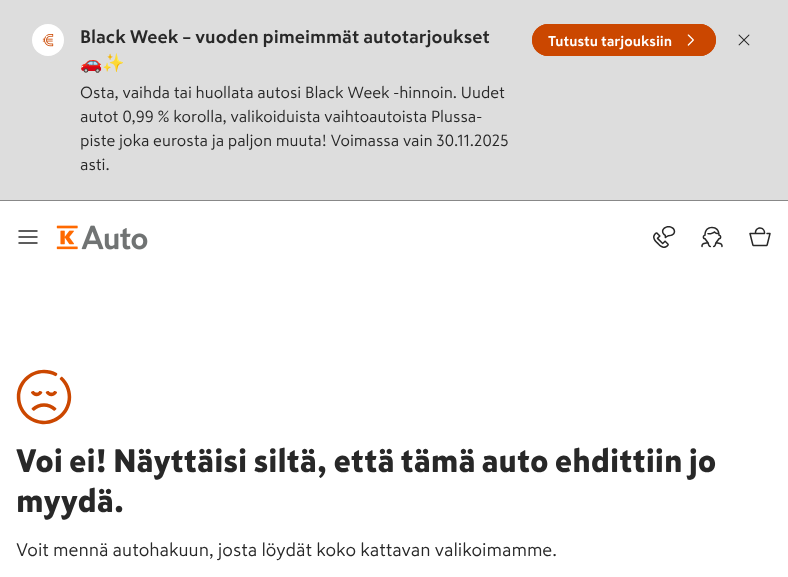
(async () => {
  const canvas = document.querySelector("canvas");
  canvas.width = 788;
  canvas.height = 577;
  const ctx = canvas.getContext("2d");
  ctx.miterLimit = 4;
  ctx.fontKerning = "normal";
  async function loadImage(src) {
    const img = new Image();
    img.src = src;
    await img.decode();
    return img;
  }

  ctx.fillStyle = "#ffffff";
  ctx.fillRect(0, 0, 788, 577);
  ctx.fillStyle = "#dddddd";
  ctx.fillRect(0, 0, 788, 200);
  ctx.fillStyle = "#888888";
  ctx.fillRect(0, 200, 788, 1);
  ctx.fillStyle = "#ffffff";
  ctx.beginPath();
  ctx.arc(48, 40, 16, 0, Math.PI * 2);
  ctx.fill();
  ctx.drawImage(await loadImage("img/1.png"), 42, 34, 12, 13);
  ctx.fillStyle = "#cb4700";
  ctx.beginPath();
  ctx.roundRect(532, 24, 184, 32, 16);
  ctx.fill();
  ctx.beginPath();
  ctx.roundRect(533, 25, 182, 30, 15);
  ctx.strokeStyle = "#cb4700";
  ctx.lineWidth = 2;
  ctx.stroke();
  ctx.drawImage(await loadImage("img/2.png"), 687, 34, 7, 12);
  ctx.drawImage(await loadImage("img/3.png"), 738, 34, 12, 12);
  ctx.drawImage(await loadImage("img/4.png"), 18, 230, 20, 14);
  ctx.drawImage(await loadImage("img/5.png"), 56, 225, 92, 25);
  ctx.drawImage(await loadImage("img/6.png"), 653, 226, 23, 22);
  ctx.drawImage(await loadImage("img/7.png"), 701, 226, 22, 22);
  ctx.drawImage(await loadImage("img/8.png"), 749, 227, 22, 20);
  ctx.drawImage(await loadImage("img/9.png"), 16, 369, 56, 56);
  ctx.font = "bold 18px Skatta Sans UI";
  ctx.fillStyle = "#282828";
  ctx.fillText("Black Week – vuoden pimeimmät autotarjoukset", 80, 43);
  ctx.font = "bold 18px Noto Color Emoji";
  ctx.fillText("🚗✨", 80, 69);
  ctx.font = "16px Skatta Sans UI";
  for (const [text, x, y] of [
    ["Osta, vaihda tai huollata autosi Black Week -hinnoin. Uudet", 80, 98],
    ["autot 0,99 % korolla, valikoiduista vaihtoautoista Plussa-", 80, 122],
    ["piste joka eurosta ja paljon muuta! Voimassa vain 30.11.2025", 80, 146],
    ["asti.", 80, 170],
  ]) {
    ctx.fillText(text, x, y);
  }
  ctx.font = "bold 14px Skatta Sans UI";
  ctx.fillStyle = "#ffffff";
  ctx.fillText("Tutustu tarjouksiin", 548, 46);
  ctx.font = "900 32px Skatta Sans UI";
  ctx.fillStyle = "#282828";
  ctx.fillText("Voi ei! Näyttäisi siltä, että tämä auto ehdittiin jo", 16, 472);
  ctx.fillText("myydä.", 16, 512);
  ctx.font = "18px Skatta Sans UI";
  ctx.fillText("Voit mennä autohakuun, josta löydät koko kattavan valikoimamme.", 16, 556);
})();
